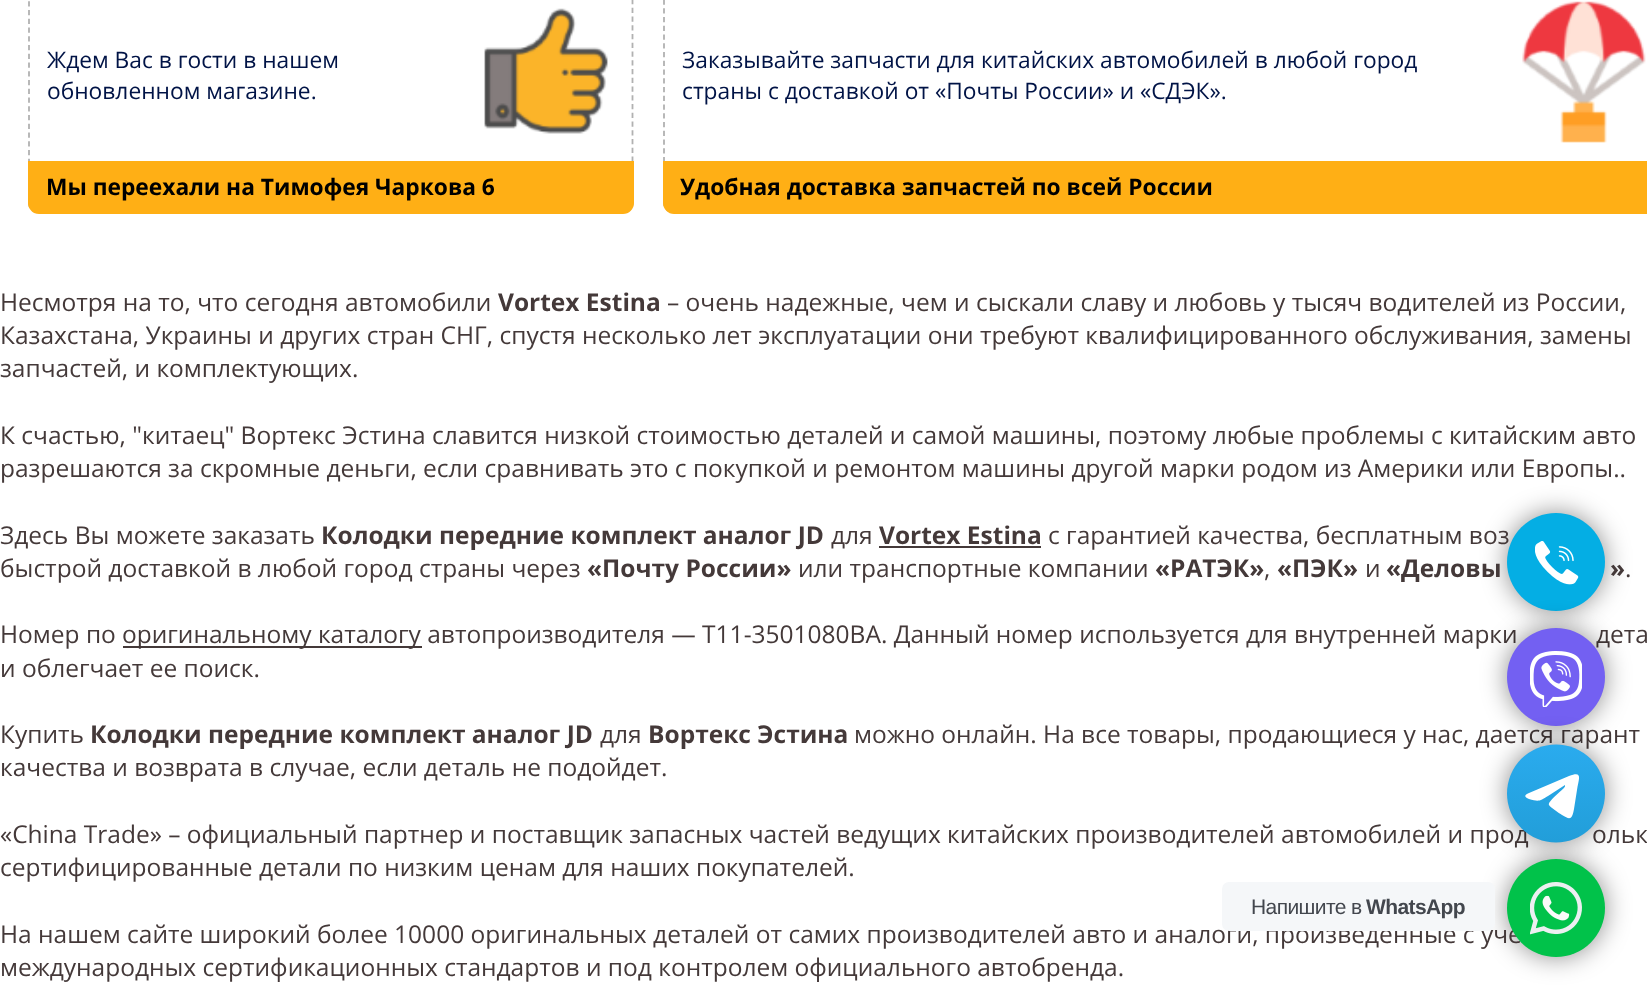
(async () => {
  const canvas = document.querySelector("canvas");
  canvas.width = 1647;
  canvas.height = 998;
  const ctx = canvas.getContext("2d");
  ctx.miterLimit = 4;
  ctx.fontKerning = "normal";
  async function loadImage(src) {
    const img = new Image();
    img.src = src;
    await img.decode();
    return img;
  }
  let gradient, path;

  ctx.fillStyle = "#ffffff";
  ctx.fillRect(0, 0, 1647, 998);
  path = new Path2D("M38.5-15H623C628.5-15 632.5-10.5 632.5-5V203C632.5 208.5 628.5 212.5 623 212.5H38.5C33 212.5 29 208.5 29 203V-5C29-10.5 33-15 38.5-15Z");
  ctx.strokeStyle = "#b1b1b1";
  ctx.lineWidth = 1.8;
  ctx.setLineDash([5.25, 3.5]);
  ctx.stroke(path);
  ctx.drawImage(await loadImage("img/1.png"), 484, 8, 124, 126);
  ctx.fillStyle = "#ffaf15";
  ctx.beginPath();
  ctx.roundRect(28, 161, 606, 53, [0, 0, 11, 11]);
  ctx.fill();
  path = new Path2D("M674-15H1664C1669.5-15 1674-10.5 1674-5V203C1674 208.5 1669.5 212.5 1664 212.5H674C668.5 212.5 664 208.5 664 203V-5C664-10.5 668.5-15 674-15Z");
  ctx.stroke(path);
  ctx.drawImage(await loadImage("img/2.png"), 1522, 1, 124, 142);
  path = new Path2D("M663 161H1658V203C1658 209 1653 214 1647 214H674C668 214 663 209 663 203Z");
  ctx.fill(path);
  ctx.fillStyle = "#443939";
  ctx.fillRect(879, 546, 162, 2);
  ctx.fillRect(123, 646, 299, 2);
  ctx.fillStyle = "rgba(0, 0, 0, 0.45)";
  ctx.filter = "blur(13px)";
  ctx.beginPath();
  ctx.roundRect(1507, 513, 98, 98, 49);
  ctx.fill();
  ctx.filter = "none";
  ctx.filter = "blur(13px)";
  ctx.beginPath();
  ctx.roundRect(1507, 859, 98, 98, 49);
  ctx.fill();
  ctx.filter = "none";
  ctx.font = "22.75px Open Sans";
  ctx.fillStyle = "#001346";
  ctx.fillText("Ждем Вас в гости в нашем", 47, 68);
  ctx.fillText("обновленном магазине.", 47, 99);
  ctx.font = "bold 22.75px Open Sans";
  ctx.fillStyle = "#000000";
  ctx.fillText("Мы переехали на Тимофея Чаркова 6", 46, 195);
  ctx.font = "22.75px Open Sans";
  ctx.fillStyle = "#001346";
  ctx.fillText("Заказывайте запчасти для китайских автомобилей в любой город", 682, 68);
  ctx.fillText("страны с доставкой от «Почты России» и «СДЭК».", 682, 99);
  ctx.font = "bold 22.75px Open Sans";
  ctx.fillStyle = "#000000";
  ctx.fillText("Удобная доставка запчастей по всей России", 680, 195);
  ctx.font = "24.5px Open Sans";
  ctx.fillStyle = "#443939";
  ctx.fillText("Несмотря на то, что сегодня автомобили", 0, 311);
  ctx.font = "bold 24.5px Open Sans";
  ctx.fillText("Vortex Estina", 498, 311);
  ctx.font = "24.5px Open Sans";
  for (const [text, x, y] of [
    ["– очень надежные, чем и сыскали славу и любовь у тысяч водителей из России,", 667, 311],
    ["Казахстана, Украины и других стран СНГ, спустя несколько лет эксплуатации они требуют квалифицированного обслуживания, замены", 0, 344],
    ["запчастей, и комплектующих.", 0, 377],
    ["К счастью, \"китаец\" Вортекс Эстина славится низкой стоимостью деталей и самой машины, поэтому любые проблемы с китайским авто", 0, 444],
    ["разрешаются за скромные деньги, если сравнивать это с покупкой и ремонтом машины другой марки родом из Америки или Европы..", 0, 477],
    ["Здесь Вы можете заказать", 0, 544],
  ]) {
    ctx.fillText(text, x, y);
  }
  ctx.font = "bold 24.5px Open Sans";
  ctx.fillText("Колодки передние комплект аналог JD", 321, 544);
  ctx.font = "24.5px Open Sans";
  ctx.fillText("для", 831, 544);
  ctx.font = "bold 24.5px Open Sans";
  ctx.fillText("Vortex Estina", 879, 544);
  ctx.font = "24.5px Open Sans";
  ctx.fillText("с гарантией качества, бесплатным воз", 1048, 544);
  ctx.fillText("быстрой доставкой в любой город страны через", 0, 577);
  ctx.font = "bold 24.5px Open Sans";
  ctx.fillText("«Почту России»", 587, 577);
  ctx.font = "24.5px Open Sans";
  ctx.fillText("или транспортные компании", 798, 577);
  ctx.font = "bold 24.5px Open Sans";
  ctx.fillText("«РАТЭК»", 1155, 577);
  ctx.fillText("«ПЭК»", 1277, 577);
  ctx.font = "24.5px Open Sans";
  ctx.fillText("и", 1365, 577);
  ctx.font = "bold 24.5px Open Sans";
  ctx.fillText("«Деловы", 1386, 577);
  ctx.fillText("»", 1610, 577);
  ctx.font = "24.5px Open Sans";
  for (const [text, x, y] of [
    [",", 1264, 577],
    [".", 1625, 577],
    ["Номер по", 0, 643],
    ["оригинальному каталогу автопроизводителя — T11-3501080BA. Данный номер используется для внутренней марки", 122, 643],
    ["дета", 1596, 643],
    ["и облегчает ее поиск.", 0, 677],
    ["Купить", 0, 743],
  ]) {
    ctx.fillText(text, x, y);
  }
  ctx.font = "bold 24.5px Open Sans";
  ctx.fillText("Колодки передние комплект аналог JD", 90, 743);
  ctx.font = "24.5px Open Sans";
  ctx.fillText("для", 600, 743);
  ctx.font = "bold 24.5px Open Sans";
  ctx.fillText("Вортекс Эстина", 648, 743);
  ctx.font = "24.5px Open Sans";
  for (const [text, x, y] of [
    ["можно онлайн. На все товары, продающиеся у нас, дается гарант", 854, 743],
    ["качества и возврата в случае, если деталь не подойдет.", 0, 776],
    ["«China Trade» – официальный партнер и поставщик запасных частей ведущих китайских производителей автомобилей и прод", 0, 843],
    ["ольк", 1592, 843],
    ["сертифицированные детали по низким ценам для наших покупателей.", 0, 876],
    ["На нашем сайте широкий более 10000 оригинальных деталей от самих производителей авто и аналоги, произведенные с уче", 0, 943],
    ["международных сертификационных стандартов и под контролем официального автобренда.", 0, 976],
  ]) {
    ctx.fillText(text, x, y);
  }
  ctx.fillStyle = "#04aee4";
  ctx.beginPath();
  ctx.arc(1556, 562, 49, 0, Math.PI * 2);
  ctx.fill();
  ctx.drawImage(await loadImage("img/3.png"), 1535, 541, 44, 44);
  ctx.fillStyle = "rgba(0, 0, 0, 0.45)";
  ctx.filter = "blur(13px)";
  ctx.beginPath();
  ctx.roundRect(1507, 628, 98, 98, 49);
  ctx.fill();
  ctx.filter = "none";
  ctx.fillStyle = "#7360f2";
  ctx.beginPath();
  ctx.arc(1556, 677, 49, 0, Math.PI * 2);
  ctx.fill();
  ctx.fillStyle = "rgba(0, 0, 0, 0.45)";
  ctx.filter = "blur(13px)";
  ctx.beginPath();
  ctx.roundRect(1507, 744, 98, 98, 49);
  ctx.fill();
  ctx.filter = "none";
  ctx.drawImage(await loadImage("img/4.png"), 1530, 651, 52, 56);
  gradient = ctx.createLinearGradient(1556, 745, 1556, 842);
  gradient.addColorStop(0, "#2aabee");
  gradient.addColorStop(1, "#229ed9");
  ctx.fillStyle = gradient;
  ctx.beginPath();
  ctx.arc(1556, 793.5, 49, 0, Math.PI * 2);
  ctx.fill();
  ctx.fillStyle = "#ffffff";
  path = new Path2D("M1529 793L1569 776C1583 771 1579 778 1577 790L1574 809C1572 820 1570 820 1562 815C1559 813 1550 807 1549 805C1547 801 1566 788 1565 786V785L1548 796C1540 801 1539 802 1529 799C1524 797 1524 795 1529 793Z");
  ctx.fill(path);
  ctx.fillStyle = "#f5f7f9";
  ctx.beginPath();
  ctx.roundRect(1222, 882, 273, 49, 7);
  ctx.fill();
  ctx.letterSpacing = "-0.6px";
  ctx.font = "21px Liberation Sans";
  ctx.fillStyle = "#43474e";
  ctx.fillText("Напишите в", 1251, 914);
  ctx.font = "bold 21px Liberation Sans";
  ctx.fillText("WhatsApp", 1366, 914);
  ctx.fillStyle = "#01c24a";
  ctx.beginPath();
  ctx.arc(1556, 908, 49, 0, Math.PI * 2);
  ctx.fill();
  ctx.drawImage(await loadImage("img/5.png"), 1530, 882, 52, 53);
})();
